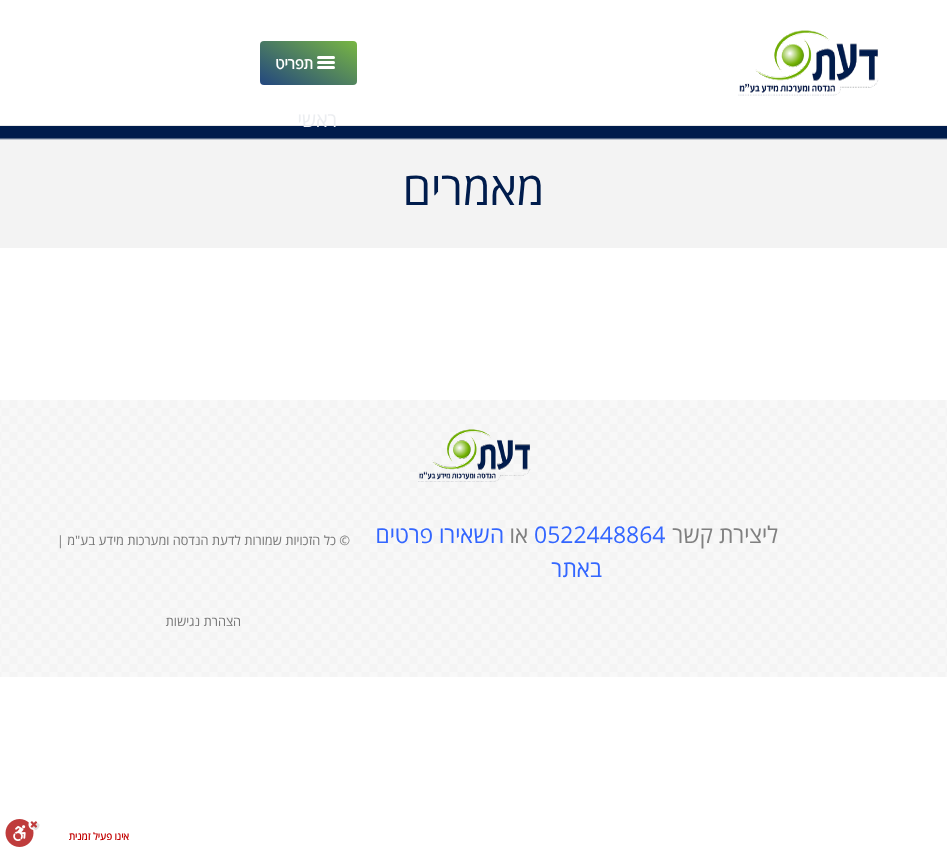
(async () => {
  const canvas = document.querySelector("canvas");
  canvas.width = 947;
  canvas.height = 859;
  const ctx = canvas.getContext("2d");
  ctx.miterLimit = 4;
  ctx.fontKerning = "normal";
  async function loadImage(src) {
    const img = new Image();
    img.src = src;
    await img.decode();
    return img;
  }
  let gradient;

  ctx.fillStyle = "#ffffff";
  ctx.fillRect(0, 0, 947, 859);
  ctx.fillStyle = "#e9e9e9";
  ctx.fillRect(0, 125, 947, 1);
  ctx.drawImage(await loadImage("img/1.png"), 738, 30, 141, 66);
  gradient = ctx.createLinearGradient(287, 101, 330, 25);
  gradient.addColorStop(0, "#224680");
  gradient.addColorStop(1, "#79b742");
  ctx.fillStyle = gradient;
  ctx.beginPath();
  ctx.roundRect(260, 41, 97, 44, 4);
  ctx.fill();
  ctx.fillStyle = "#ffffff";
  ctx.beginPath();
  ctx.roundRect(317, 61, 18, 3, 1.5);
  ctx.fill();
  ctx.beginPath();
  ctx.roundRect(317, 56, 18, 3, 1.5);
  ctx.fill();
  ctx.beginPath();
  ctx.roundRect(317, 66, 18, 3, 1.5);
  ctx.fill();
  ctx.fillStyle = "#001c4c";
  ctx.fillRect(0, 126, 947, 12);
  ctx.drawImage(await loadImage("img/2.png"), 0, 138, 947, 110);
  ctx.drawImage(await loadImage("img/3.png"), 0, 400, 947, 277);
  ctx.drawImage(await loadImage("img/4.png"), 418, 429, 113, 53);
  ctx.drawImage(await loadImage("img/5.png"), 5, 819, 35, 28);
  ctx.direction = "rtl";
  ctx.font = "bold 15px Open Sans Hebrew";
  ctx.fillStyle = "#ffffff";
  ctx.fillText("תפריט", 313, 69);
  ctx.font = "20px Open Sans Hebrew";
  ctx.fillStyle = "#eceef1";
  ctx.fillText("ראשי", 337, 127);
  ctx.font = "46px Open Sans Hebrew";
  ctx.fillStyle = "#001c4c";
  ctx.fillText("מאמרים", 544, 205);
  ctx.font = "23px Open Sans Hebrew";
  ctx.fillStyle = "#808080";
  ctx.fillText("ליצירת קשר", 778, 543);
  ctx.direction = "ltr";
  ctx.fillStyle = "#3366ff";
  ctx.fillText("0522448864", 534, 543);
  ctx.direction = "rtl";
  ctx.fillStyle = "#808080";
  ctx.fillText("או", 528, 543);
  ctx.fillStyle = "#3366ff";
  ctx.fillText("השאירו פרטים", 504, 543);
  ctx.fillText("באתר", 602, 577);
  ctx.font = "13px Open Sans Hebrew";
  ctx.fillStyle = "#777777";
  ctx.fillText("© כל הזכויות שמורות לדעת הנדסה ומערכות מידע בע\"מ |", 350, 545);
  ctx.fillText("הצהרת נגישות", 241, 626);
  ctx.font = "bold 10px Open Sans Hebrew";
  ctx.fillStyle = "#c20000";
  ctx.fillText("אינו פעיל זמנית", 129, 840);
})();
